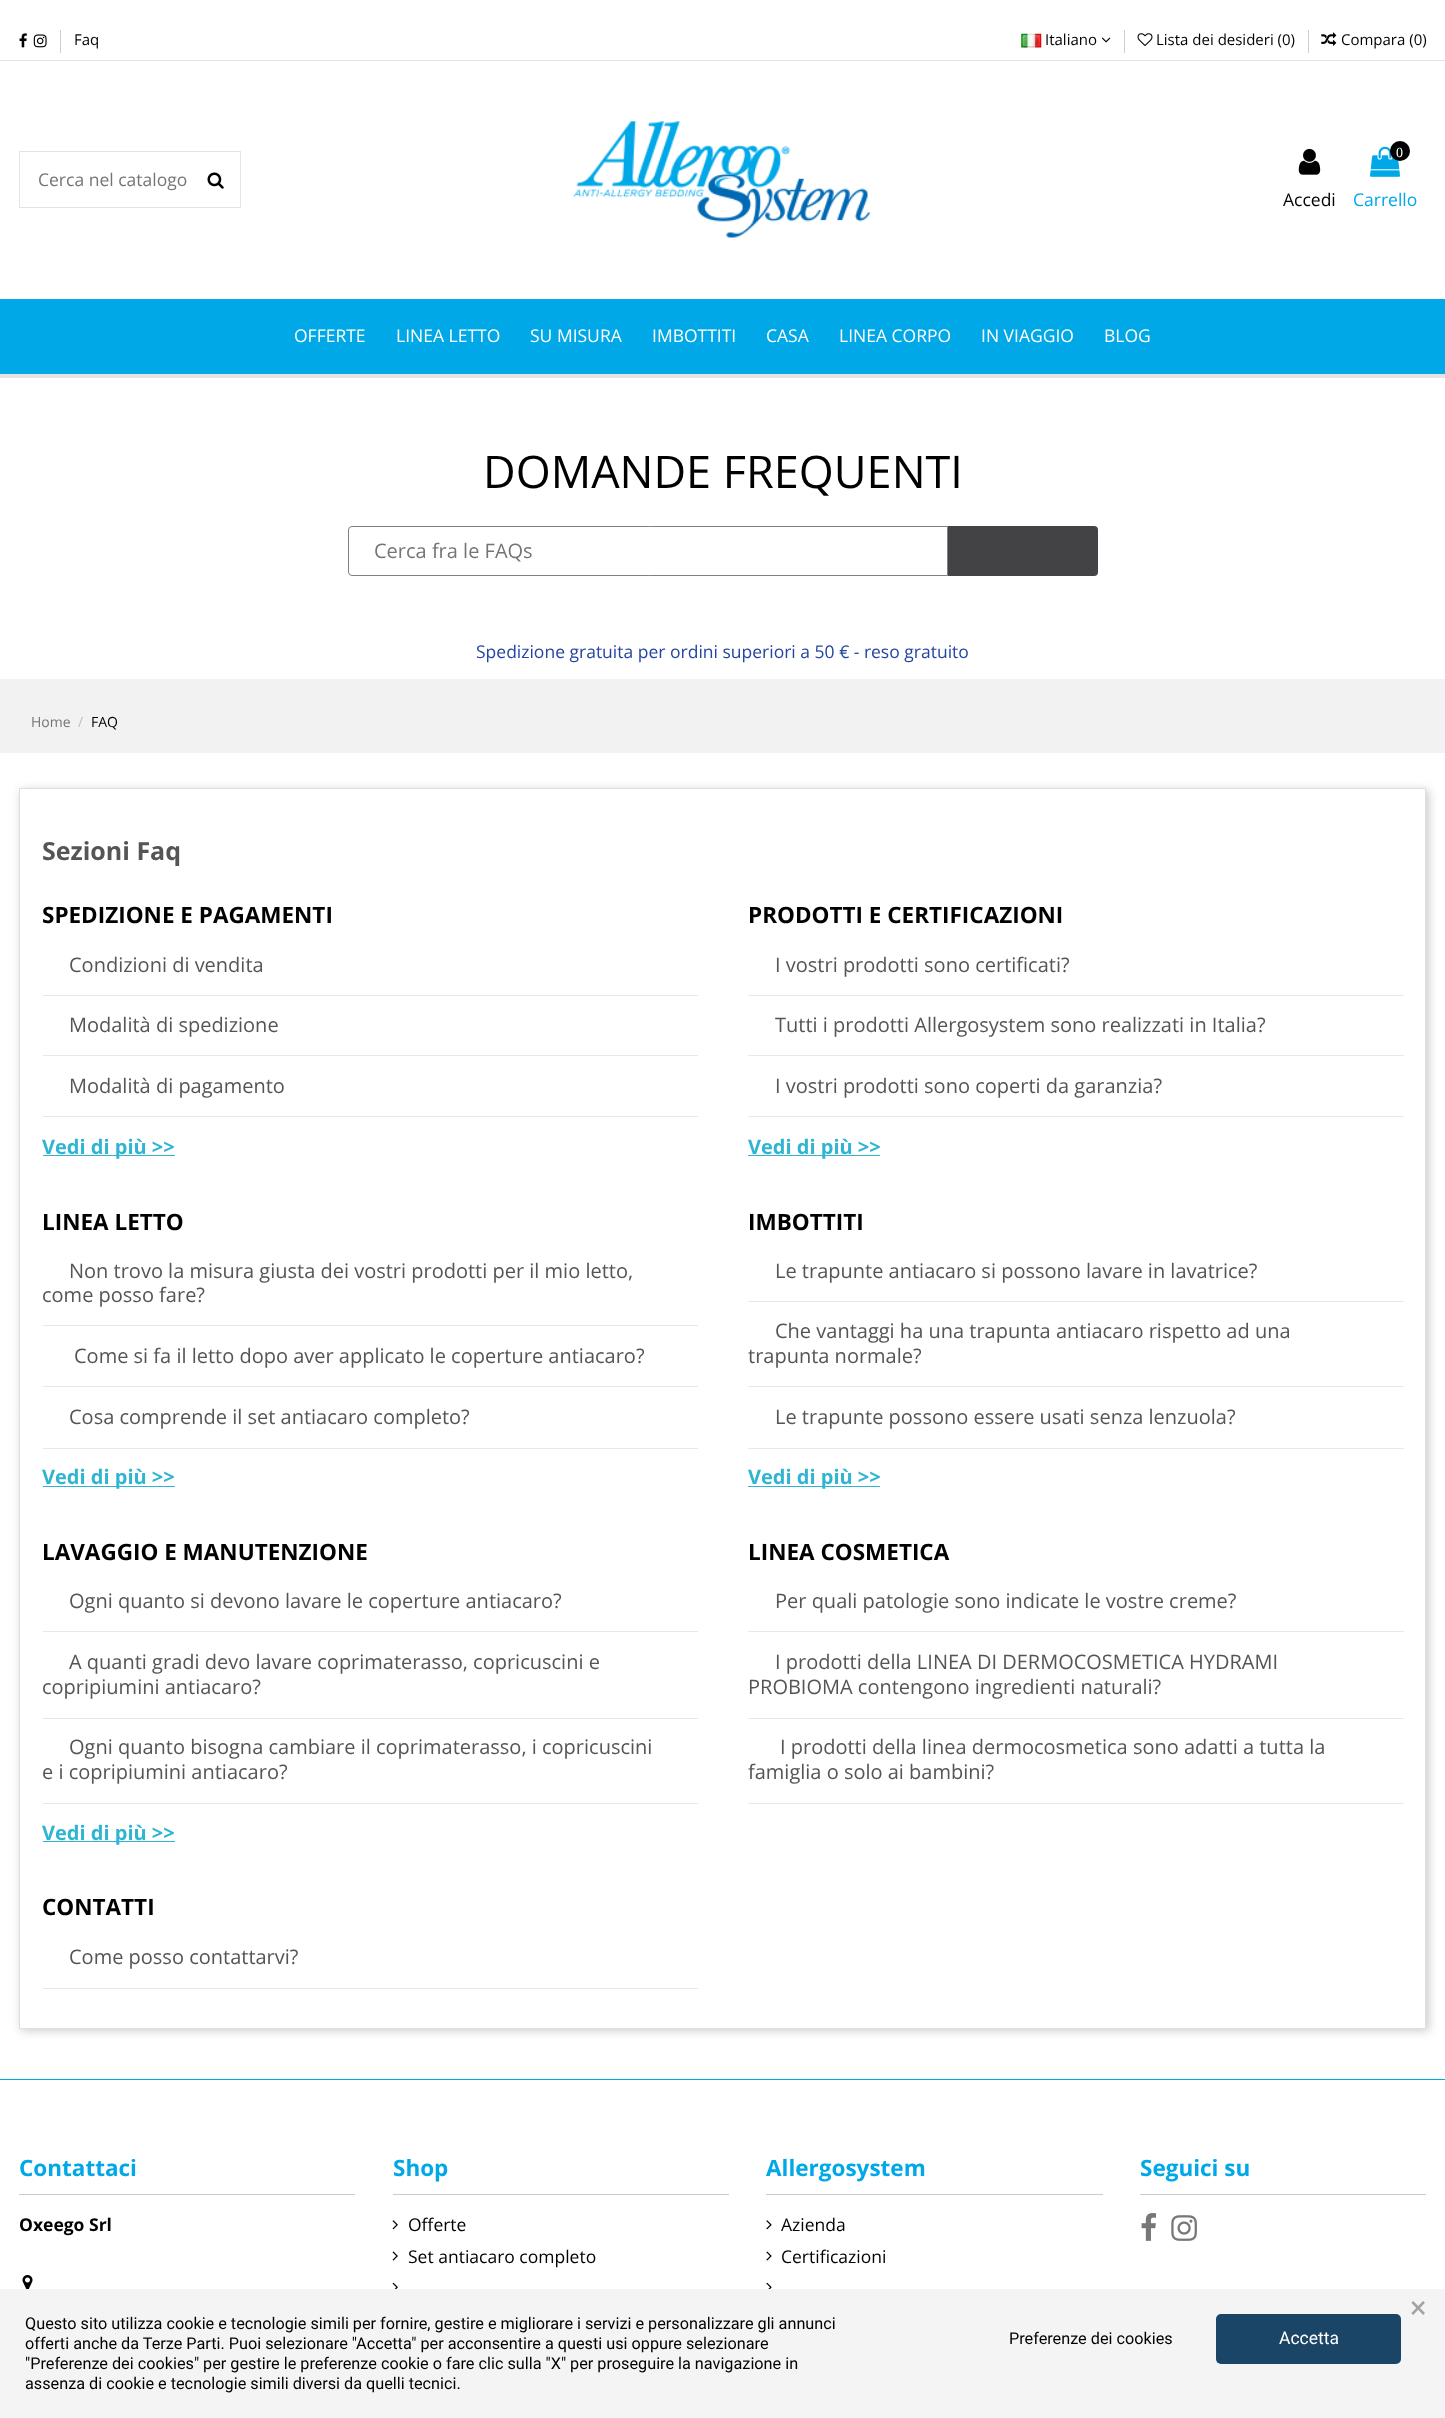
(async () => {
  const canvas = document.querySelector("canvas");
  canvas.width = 1445;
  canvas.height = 2418;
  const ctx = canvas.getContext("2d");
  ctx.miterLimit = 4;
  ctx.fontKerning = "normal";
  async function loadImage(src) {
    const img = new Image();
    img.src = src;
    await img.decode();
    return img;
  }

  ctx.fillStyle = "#ffffff";
  ctx.fillRect(0, 0, 1445, 2418);
  ctx.fillStyle = "#e3e3e3";
  ctx.fillRect(0, 60, 1445, 1);
  ctx.drawImage(await loadImage("img/1.png"), 19, 33, 8, 15);
  ctx.drawImage(await loadImage("img/2.png"), 33, 34, 14, 14);
  ctx.fillStyle = "#cccccc";
  ctx.fillRect(60, 30, 1, 23);
  ctx.drawImage(await loadImage("img/3.png"), 1021, 33, 21, 15);
  ctx.drawImage(await loadImage("img/4.png"), 1101, 37, 10, 6);
  ctx.fillRect(1124, 30, 1, 23);
  ctx.drawImage(await loadImage("img/5.png"), 1137, 33, 16, 13);
  ctx.fillRect(1308, 30, 1, 23);
  ctx.drawImage(await loadImage("img/6.png"), 1321, 32, 16, 14);
  ctx.strokeStyle = "#e3e3e3";
  ctx.strokeRect(19.5, 151.5, 221, 56);
  ctx.drawImage(await loadImage("img/7.png"), 207, 172, 17, 17);
  ctx.drawImage(await loadImage("img/8.png"), 573, 121, 298, 117);
  ctx.drawImage(await loadImage("img/9.png"), 1298, 148, 23, 27);
  ctx.drawImage(await loadImage("img/10.png"), 1370, 146, 30, 31);
  ctx.fillStyle = "#000000";
  ctx.beginPath();
  ctx.arc(1400, 151, 10, 0, Math.PI * 2);
  ctx.fill();
  ctx.fillStyle = "#00a8e7";
  ctx.fillRect(0, 299, 1445, 75);
  ctx.fillStyle = "#e3e3e3";
  ctx.fillRect(0, 374, 1445, 4);
  ctx.beginPath();
  ctx.roundRect(348.5, 526.5, 599, 49, [3.5, 0, 0, 3.5]);
  ctx.strokeStyle = "#808080";
  ctx.stroke();
  ctx.fillStyle = "#434345";
  ctx.beginPath();
  ctx.roundRect(948, 526, 150, 50, [0, 4, 4, 0]);
  ctx.fill();
  ctx.fillStyle = "#f2f2f2";
  ctx.fillRect(0, 679, 1445, 74);
  ctx.fillStyle = "rgba(0, 0, 0, 0.2)";
  ctx.filter = "blur(5px)";
  ctx.beginPath();
  ctx.rect(21, 790, 1408, 1241);
  ctx.fill();
  ctx.filter = "none";
  ctx.fillStyle = "#ffffff";
  ctx.beginPath();
  ctx.rect(19.5, 788.5, 1406, 1240);
  ctx.fill();
  ctx.strokeStyle = "#dfdfdf";
  ctx.stroke();
  for (const [x, y, w, h, color] of [
    [43, 995, 655, 1, "#e8e8e8"],
    [43, 1055, 655, 1, "#e8e8e8"],
    [43, 1116, 655, 1, "#e8e8e8"],
    [43, 1155, 132, 1, "#2fb5d2"],
    [748, 995, 656, 1, "#e8e8e8"],
    [748, 1055, 656, 1, "#e8e8e8"],
    [748, 1116, 656, 1, "#e8e8e8"],
    [748, 1155, 132, 1, "#2fb5d2"],
    [43, 1325, 655, 1, "#e8e8e8"],
    [43, 1386, 655, 1, "#e8e8e8"],
    [43, 1448, 655, 1, "#e8e8e8"],
    [43, 1486, 132, 1, "#2fb5d2"],
    [748, 1301, 656, 1, "#e8e8e8"],
    [748, 1386, 656, 1, "#e8e8e8"],
    [748, 1448, 656, 1, "#e8e8e8"],
    [748, 1486, 132, 1, "#2fb5d2"],
    [43, 1631, 655, 1, "#e8e8e8"],
    [43, 1718, 655, 1, "#e8e8e8"],
    [43, 1803, 655, 1, "#e8e8e8"],
    [43, 1841, 132, 1, "#2fb5d2"],
    [748, 1631, 656, 1, "#e8e8e8"],
    [748, 1718, 656, 1, "#e8e8e8"],
    [748, 1803, 656, 1, "#e8e8e8"],
    [43, 1988, 655, 1, "#e8e8e8"],
    [0, 2079, 1445, 1, "#00a8e7"],
    [19, 2194, 336, 1, "#cccccc"],
  ]) {
    ctx.fillStyle = color;
    ctx.fillRect(x, y, w, h);
  }
  ctx.drawImage(await loadImage("img/11.png"), 22, 2275, 11, 14);
  ctx.fillRect(393, 2194, 336, 1);
  ctx.drawImage(await loadImage("img/12.png"), 392, 2220, 6, 10);
  ctx.drawImage(await loadImage("img/13.png"), 392, 2251, 6, 10);
  ctx.drawImage(await loadImage("img/14.png"), 392, 2282, 6, 7);
  ctx.fillRect(766, 2194, 337, 1);
  ctx.drawImage(await loadImage("img/15.png"), 766, 2220, 6, 10);
  ctx.drawImage(await loadImage("img/16.png"), 766, 2251, 6, 10);
  ctx.drawImage(await loadImage("img/17.png"), 766, 2282, 6, 7);
  ctx.fillRect(1140, 2194, 286, 1);
  ctx.drawImage(await loadImage("img/18.png"), 1141, 2213, 16, 28);
  ctx.drawImage(await loadImage("img/19.png"), 1171, 2215, 26, 26);
  ctx.fillStyle = "#f4f4f4";
  ctx.fillRect(0, 2289, 1445, 129);
  ctx.fillStyle = "#1b4566";
  ctx.beginPath();
  ctx.roundRect(1216, 2314, 185, 50, 5);
  ctx.fill();
  ctx.font = "15px Open Sans";
  ctx.fillStyle = "#000000";
  for (const [text, x, y] of [
    ["Faq", 74, 45],
    ["Italiano", 1045, 45],
    ["Lista dei desideri (0)", 1156, 45],
    ["Compara (0)", 1341, 45],
  ]) {
    ctx.fillText(text, x, y);
  }
  ctx.font = "17.5px Open Sans";
  ctx.fillStyle = "#757575";
  ctx.fillText("Cerca nel catalogo", 38, 186);
  ctx.fillStyle = "#000000";
  ctx.fillText("Accedi", 1283, 206);
  ctx.font = "14px Liberation Serif";
  ctx.fillStyle = "#ffffff";
  ctx.fillText("0", 1396, 157);
  ctx.font = "17.5px Open Sans";
  ctx.fillStyle = "#00a8e7";
  ctx.fillText("Carrello", 1353, 206);
  ctx.fillStyle = "#ffffff";
  for (const [text, x, y] of [
    ["OFFERTE", 294, 342],
    ["LINEA LETTO", 396, 342],
    ["SU MISURA", 530, 342],
    ["IMBOTTITI", 652, 342],
    ["CASA", 766, 342],
    ["LINEA CORPO", 839, 342],
    ["IN VIAGGIO", 981, 342],
    ["BLOG", 1104, 342],
  ]) {
    ctx.fillText(text, x, y);
  }
  ctx.font = "45px Open Sans";
  ctx.fillStyle = "#000000";
  ctx.fillText("DOMANDE FREQUENTI", 483, 488);
  ctx.font = "20px Open Sans";
  ctx.fillStyle = "#757575";
  ctx.fillText("Cerca fra le FAQs", 374, 558);
  ctx.font = "17.5px Open Sans";
  ctx.fillStyle = "#2445a2";
  ctx.fillText("Spedizione gratuita per ordini superiori a 50 € - reso gratuito", 476, 658);
  ctx.font = "14px Open Sans";
  ctx.fillStyle = "#757575";
  ctx.fillText("Home", 31, 727);
  ctx.fillStyle = "#c0c0c0";
  ctx.fillText("/", 78, 727);
  ctx.fillStyle = "#000000";
  ctx.fillText("FAQ", 91, 727);
  ctx.font = "bold 25px Open Sans";
  ctx.fillStyle = "#555555";
  ctx.fillText("Sezioni Faq", 42, 860);
  ctx.font = "bold 22.5px Open Sans";
  ctx.fillStyle = "#000000";
  ctx.fillText("SPEDIZIONE E PAGAMENTI", 42, 923);
  ctx.font = "20px Open Sans";
  ctx.fillStyle = "#555555";
  for (const [text, x, y] of [
    ["Condizioni di vendita", 69, 972],
    ["Modalità di spedizione", 69, 1032],
    ["Modalità di pagamento", 69, 1093],
  ]) {
    ctx.fillText(text, x, y);
  }
  ctx.font = "bold 20px Open Sans";
  ctx.fillStyle = "#2fb5d2";
  ctx.fillText("Vedi di più >>", 42, 1154);
  ctx.font = "bold 22.5px Open Sans";
  ctx.fillStyle = "#000000";
  ctx.fillText("PRODOTTI E CERTIFICAZIONI", 748, 923);
  ctx.font = "20px Open Sans";
  ctx.fillStyle = "#555555";
  for (const [text, x, y] of [
    ["I vostri prodotti sono certificati?", 775, 972],
    ["Tutti i prodotti Allergosystem sono realizzati in Italia?", 775, 1032],
    ["I vostri prodotti sono coperti da garanzia?", 775, 1093],
  ]) {
    ctx.fillText(text, x, y);
  }
  ctx.font = "bold 20px Open Sans";
  ctx.fillStyle = "#2fb5d2";
  ctx.fillText("Vedi di più >>", 748, 1154);
  ctx.font = "bold 22.5px Open Sans";
  ctx.fillStyle = "#000000";
  ctx.fillText("LINEA LETTO", 42, 1230);
  ctx.font = "20px Open Sans";
  ctx.fillStyle = "#555555";
  for (const [text, x, y] of [
    ["Non trovo la misura giusta dei vostri prodotti per il mio letto,", 69, 1278],
    ["come posso fare?", 42, 1302],
    ["Come si fa il letto dopo aver applicato le coperture antiacaro?", 74, 1363],
    ["Cosa comprende il set antiacaro completo?", 69, 1424],
  ]) {
    ctx.fillText(text, x, y);
  }
  ctx.font = "bold 20px Open Sans";
  ctx.fillStyle = "#2fb5d2";
  ctx.fillText("Vedi di più >>", 42, 1484);
  ctx.font = "bold 22.5px Open Sans";
  ctx.fillStyle = "#000000";
  ctx.fillText("IMBOTTITI", 748, 1230);
  ctx.font = "20px Open Sans";
  ctx.fillStyle = "#555555";
  for (const [text, x, y] of [
    ["Le trapunte antiacaro si possono lavare in lavatrice?", 775, 1278],
    ["Che vantaggi ha una trapunta antiacaro rispetto ad una", 775, 1338],
    ["trapunta normale?", 748, 1363],
    ["Le trapunte possono essere usati senza lenzuola?", 775, 1424],
  ]) {
    ctx.fillText(text, x, y);
  }
  ctx.font = "bold 20px Open Sans";
  ctx.fillStyle = "#2fb5d2";
  ctx.fillText("Vedi di più >>", 748, 1484);
  ctx.font = "bold 22.5px Open Sans";
  ctx.fillStyle = "#000000";
  ctx.fillText("LAVAGGIO E MANUTENZIONE", 42, 1560);
  ctx.font = "20px Open Sans";
  ctx.fillStyle = "#555555";
  for (const [text, x, y] of [
    ["Ogni quanto si devono lavare le coperture antiacaro?", 69, 1608],
    ["A quanti gradi devo lavare coprimaterasso, copricuscini e", 69, 1669],
    ["copripiumini antiacaro?", 42, 1694],
    ["Ogni quanto bisogna cambiare il coprimaterasso, i copricuscini", 69, 1754],
    ["e i copripiumini antiacaro?", 42, 1779],
  ]) {
    ctx.fillText(text, x, y);
  }
  ctx.font = "bold 20px Open Sans";
  ctx.fillStyle = "#2fb5d2";
  ctx.fillText("Vedi di più >>", 42, 1840);
  ctx.font = "bold 22.5px Open Sans";
  ctx.fillStyle = "#000000";
  ctx.fillText("LINEA COSMETICA", 748, 1560);
  ctx.font = "20px Open Sans";
  ctx.fillStyle = "#555555";
  for (const [text, x, y] of [
    ["Per quali patologie sono indicate le vostre creme?", 775, 1608],
    ["I prodotti della LINEA DI DERMOCOSMETICA HYDRAMI", 775, 1669],
    ["PROBIOMA contengono ingredienti naturali?", 748, 1694],
    ["I prodotti della linea dermocosmetica sono adatti a tutta la", 780, 1754],
    ["famiglia o solo ai bambini?", 748, 1779],
  ]) {
    ctx.fillText(text, x, y);
  }
  ctx.font = "bold 22.5px Open Sans";
  ctx.fillStyle = "#000000";
  ctx.fillText("CONTATTI", 42, 1915);
  ctx.font = "20px Open Sans";
  ctx.fillStyle = "#555555";
  ctx.fillText("Come posso contattarvi?", 69, 1964);
  ctx.font = "bold 22.5px Open Sans";
  ctx.fillStyle = "#00a8e7";
  ctx.fillText("Contattaci", 19, 2176);
  ctx.font = "bold 17.5px Open Sans";
  ctx.fillStyle = "#000000";
  ctx.fillText("Oxeego Srl", 19, 2231);
  ctx.font = "bold 22.5px Open Sans";
  ctx.fillStyle = "#00a8e7";
  ctx.fillText("Shop", 393, 2176);
  ctx.font = "17.5px Open Sans";
  ctx.fillStyle = "#000000";
  ctx.fillText("Offerte", 408, 2231);
  ctx.fillText("Set antiacaro completo", 408, 2263);
  ctx.font = "bold 22.5px Open Sans";
  ctx.fillStyle = "#00a8e7";
  ctx.fillText("Allergosystem", 766, 2176);
  ctx.font = "17.5px Open Sans";
  ctx.fillStyle = "#000000";
  ctx.fillText("Azienda", 781, 2231);
  ctx.fillText("Certificazioni", 781, 2263);
  ctx.font = "bold 22.5px Open Sans";
  ctx.fillStyle = "#00a8e7";
  ctx.fillText("Seguici su", 1140, 2176);
  ctx.font = "31px Roboto";
  ctx.fillStyle = "#a3a3a3";
  ctx.fillText("×", 1410, 2318);
  ctx.font = "16.25px Roboto";
  ctx.fillStyle = "#000000";
  for (const [text, x, y] of [
    ["Questo sito utilizza cookie e tecnologie simili per fornire, gestire e migliorare i servizi e personalizzare gli annunci", 25, 2329],
    ["offerti anche da Terze Parti. Puoi selezionare \"Accetta\" per acconsentire a questi usi oppure selezionare", 25, 2349],
    ["\"Preferenze dei cookies\" per gestire le preferenze cookie o fare clic sulla \"X\" per proseguire la navigazione in", 25, 2369],
    ["assenza di cookie e tecnologie simili diversi da quelli tecnici.", 25, 2389],
    ["Preferenze dei cookies", 1009, 2344],
  ]) {
    ctx.fillText(text, x, y);
  }
  ctx.font = "17.5px Roboto";
  ctx.fillStyle = "#ffffff";
  ctx.fillText("Accetta", 1279, 2344);
})();
